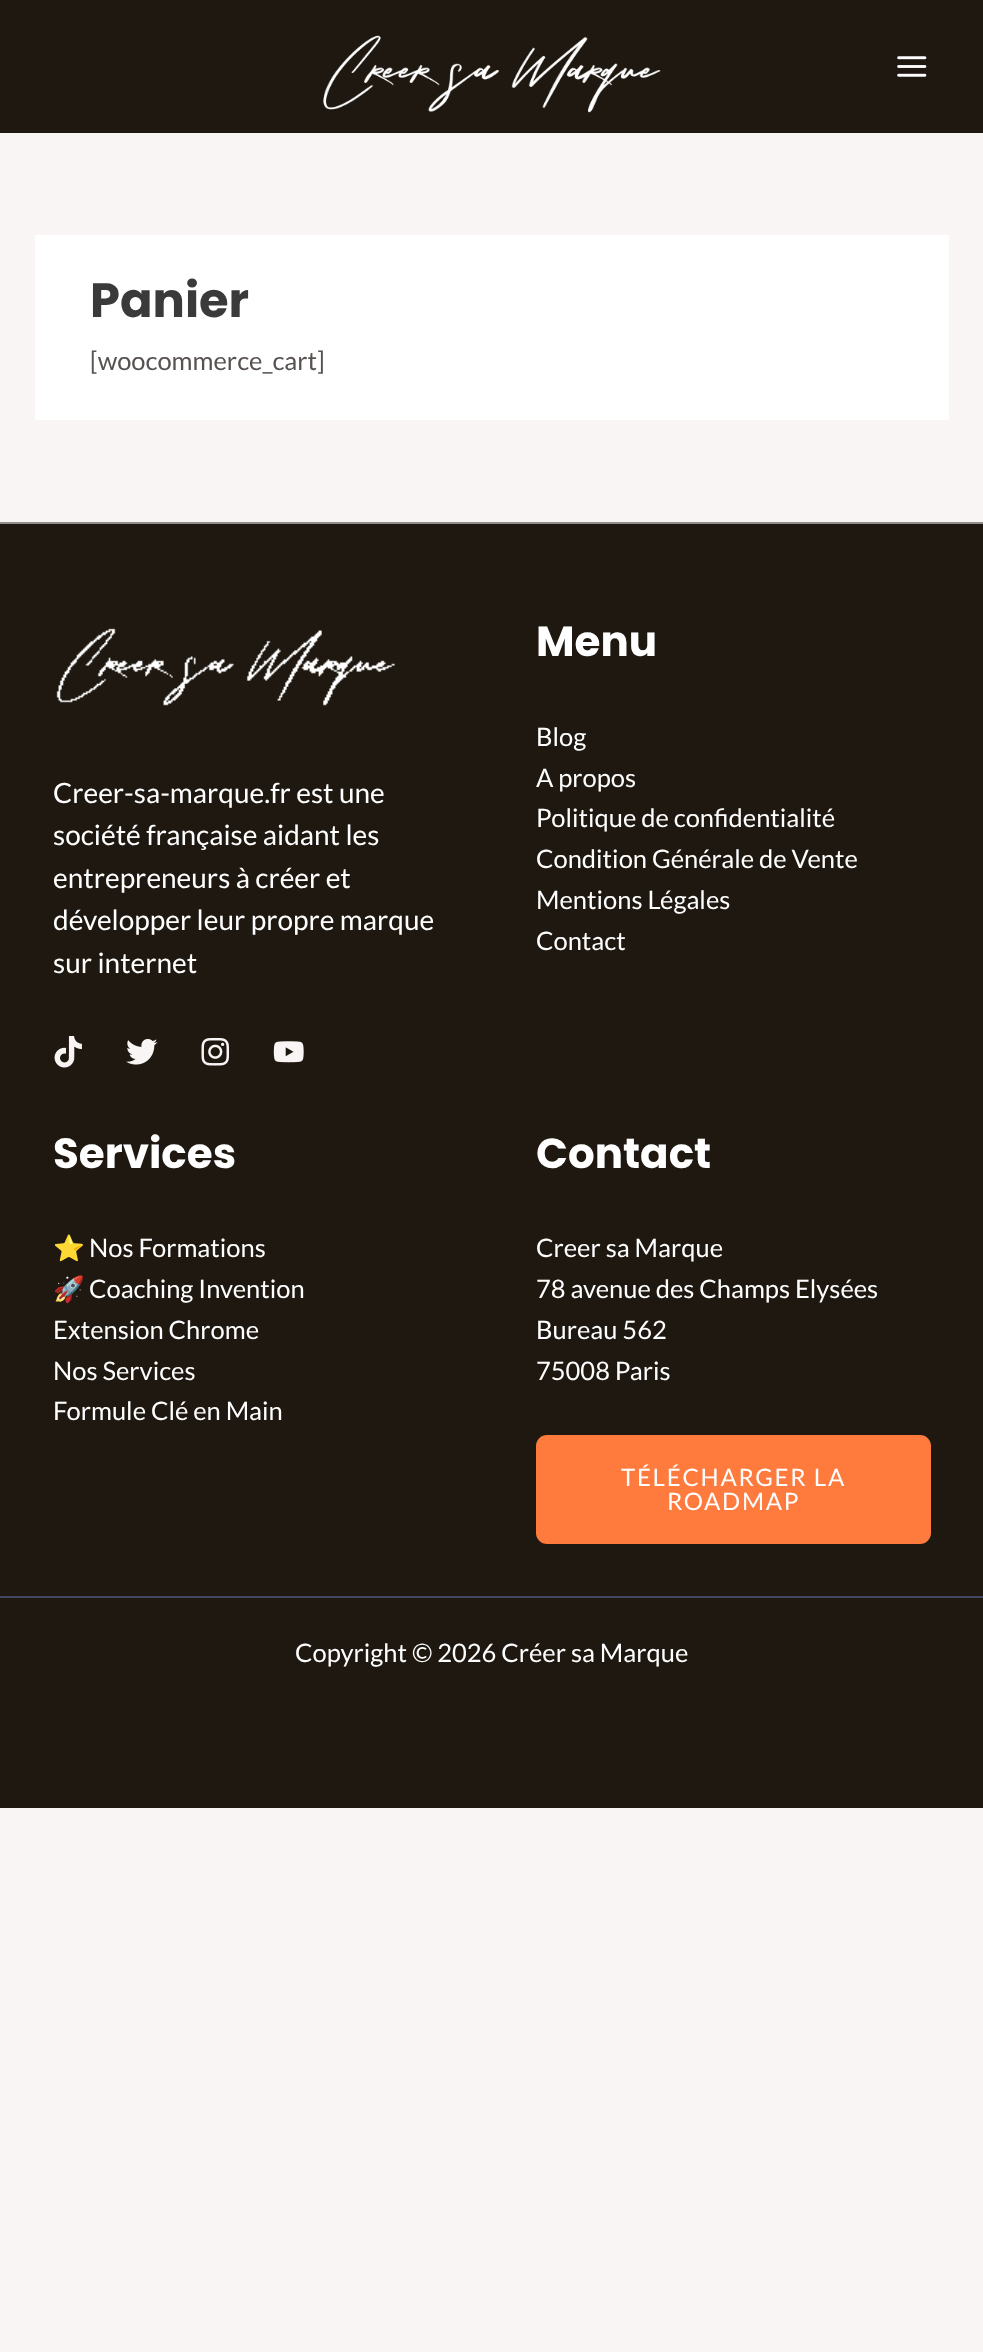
(async () => {
  const canvas = document.querySelector("canvas");
  canvas.width = 983;
  canvas.height = 2352;
  const ctx = canvas.getContext("2d");
  ctx.miterLimit = 4;
  ctx.fontKerning = "normal";
  async function loadImage(src) {
    const img = new Image();
    img.src = src;
    await img.decode();
    return img;
  }

  ctx.fillStyle = "#f8f5f4";
  ctx.fillRect(0, 0, 983, 2352);
  ctx.fillStyle = "#1e1810";
  ctx.fillRect(0, 0, 983, 133);
  ctx.drawImage(await loadImage("img/1.png"), 323, 35, 338, 78);
  ctx.drawImage(await loadImage("img/2.png"), 897, 56, 30, 21);
  for (const [x, y, w, h, color] of [
    [35, 235, 914, 185, "#ffffff"],
    [0, 524, 983, 1284, "#1e1810"],
    [0, 522, 983, 2, "#908d8a"],
  ]) {
    ctx.fillStyle = color;
    ctx.fillRect(x, y, w, h);
  }
  ctx.drawImage(await loadImage("img/3.png"), 56, 628, 339, 78);
  ctx.drawImage(await loadImage("img/4.png"), 54, 1036, 28, 32);
  ctx.drawImage(await loadImage("img/5.png"), 126, 1039, 32, 26);
  ctx.drawImage(await loadImage("img/6.png"), 201, 1037, 29, 29);
  ctx.drawImage(await loadImage("img/7.png"), 273, 1041, 31, 22);
  ctx.fillStyle = "#ff7a3d";
  ctx.beginPath();
  ctx.roundRect(536, 1435, 395, 109, 11);
  ctx.fill();
  ctx.fillStyle = "#434561";
  ctx.fillRect(0, 1596, 983, 2);
  ctx.font = "bold 48px Poppins";
  ctx.fillStyle = "#3a3a3a";
  ctx.fillText("Panier", 90, 317);
  ctx.font = "25.5px Lato";
  ctx.fillStyle = "#575250";
  ctx.fillText("[woocommerce_cart]", 90, 370);
  ctx.font = "28px Lato";
  ctx.fillStyle = "#ffffff";
  for (const [text, x, y] of [
    ["Creer-sa-marque.fr est une", 53, 803],
    ["société française aidant les", 53, 845],
    ["entrepreneurs à créer et", 53, 888],
    ["développer leur propre marque", 53, 930],
    ["sur internet", 53, 973],
  ]) {
    ctx.fillText(text, x, y);
  }
  ctx.font = "bold 42px Poppins";
  ctx.fillText("Menu", 536, 656);
  ctx.font = "25.5px Lato";
  for (const [text, x, y] of [
    ["Blog", 536, 746],
    ["A propos", 536, 787],
    ["Politique de confidentialité", 536, 827],
    ["Condition Générale de Vente", 536, 868],
    ["Mentions Légales", 536, 909],
    ["Contact", 536, 950],
  ]) {
    ctx.fillText(text, x, y);
  }
  ctx.font = "bold 42px Poppins";
  ctx.fillText("Services", 53, 1168);
  ctx.font = "25.5px Noto Color Emoji";
  ctx.fillText("⭐️", 53, 1257);
  ctx.font = "25.5px Lato";
  ctx.fillText("Nos Formations", 89, 1257);
  ctx.font = "25.5px Noto Color Emoji";
  ctx.fillText("🚀", 53, 1298);
  ctx.font = "25.5px Lato";
  for (const [text, x, y] of [
    ["Coaching Invention", 89, 1298],
    ["Extension Chrome", 53, 1339],
    ["Nos Services", 53, 1380],
    ["Formule Clé en Main", 53, 1420],
  ]) {
    ctx.fillText(text, x, y);
  }
  ctx.font = "bold 42px Poppins";
  ctx.fillText("Contact", 536, 1168);
  ctx.font = "25.5px Lato";
  for (const [text, x, y] of [
    ["Creer sa Marque", 536, 1257],
    ["78 avenue des Champs Elysées", 536, 1298],
    ["Bureau 562", 536, 1339],
    ["75008 Paris", 536, 1380],
  ]) {
    ctx.fillText(text, x, y);
  }
  ctx.letterSpacing = "1.75px";
  ctx.font = "24px Lato";
  ctx.fillText("TÉLÉCHARGER LA", 621, 1486);
  ctx.fillText("ROADMAP", 667, 1510);
  ctx.letterSpacing = "0px";
  ctx.font = "25.5px Lato";
  ctx.fillText("Copyright © 2026 Créer sa Marque", 295, 1662);
})();
